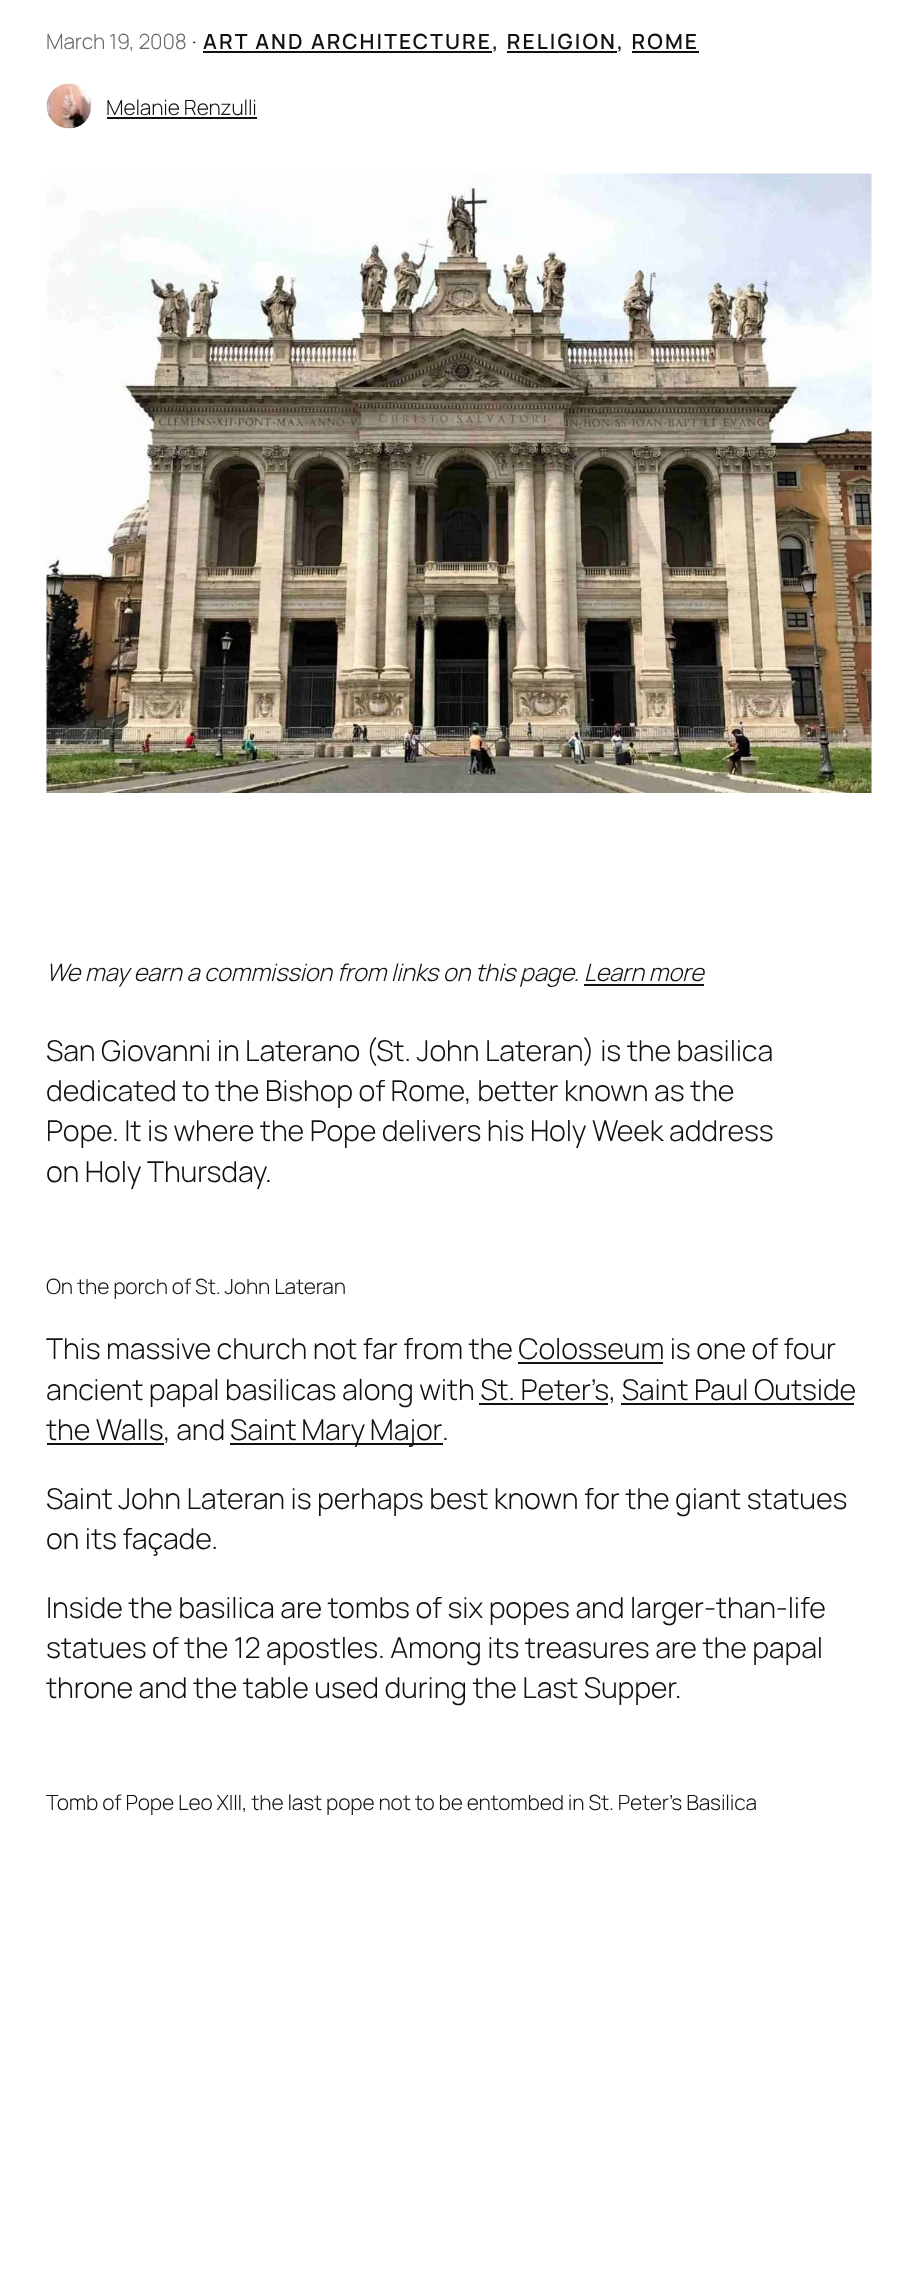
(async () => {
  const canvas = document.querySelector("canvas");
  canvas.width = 917;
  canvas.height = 2287;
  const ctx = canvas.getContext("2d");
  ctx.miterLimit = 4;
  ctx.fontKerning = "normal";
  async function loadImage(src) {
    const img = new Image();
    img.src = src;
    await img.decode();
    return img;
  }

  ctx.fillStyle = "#ffffff";
  ctx.fillRect(0, 0, 917, 2287);
  for (const [x, y, w, h, color] of [
    [203, 51, 289, 2, "#111111"],
    [507, 51, 110, 2, "#111111"],
    [632, 51, 67, 2, "#111111"],
  ]) {
    ctx.fillStyle = color;
    ctx.fillRect(x, y, w, h);
  }
  ctx.drawImage(await loadImage("img/1.png"), 46, 83, 46, 46);
  ctx.fillRect(107, 117, 150, 2);
  ctx.drawImage(await loadImage("img/2.png"), 46, 173, 826, 620);
  for (const [x, y, w, h, color] of [
    [584, 984, 120, 2, "#111111"],
    [518, 1362, 145, 2, "#111111"],
    [479, 1403, 129, 2, "#111111"],
    [621, 1403, 233, 2, "#111111"],
    [47, 1443, 117, 2, "#111111"],
    [230, 1443, 213, 2, "#111111"],
  ]) {
    ctx.fillStyle = color;
    ctx.fillRect(x, y, w, h);
  }
  ctx.letterSpacing = "-0.15px";
  ctx.font = "300 21px Manrope";
  ctx.fillStyle = "#686868";
  ctx.fillText("March 19, 2008", 46, 49);
  ctx.fillStyle = "#111111";
  ctx.fillText("·", 192, 49);
  ctx.letterSpacing = "2.1px";
  ctx.font = "600 21px Manrope";
  ctx.fillText("ART AND ARCHITECTURE, RELIGION, ROME", 203, 49);
  ctx.letterSpacing = "-0.15px";
  ctx.font = "300 21px Manrope";
  ctx.fillText("Melanie Renzulli", 106, 115);
  ctx.font = "italic 300 23.9px Manrope";
  ctx.fillText("We may earn a commission from links on this page. Learn more", 46, 981);
  ctx.font = "300 28.75px Manrope";
  for (const [text, x, y] of [
    ["San Giovanni in Laterano (St. John Lateran) is the basilica", 46, 1061],
    ["dedicated to the Bishop of Rome, better known as the", 46, 1101],
    ["Pope. It is where the Pope delivers his Holy Week address", 46, 1141],
    ["on Holy Thursday.", 46, 1182],
  ]) {
    ctx.fillText(text, x, y);
  }
  ctx.font = "300 21px Manrope";
  ctx.fillText("On the porch of St. John Lateran", 46, 1294);
  ctx.font = "300 28.75px Manrope";
  for (const [text, x, y] of [
    ["This massive church not far from the Colosseum is one of four", 46, 1359],
    ["ancient papal basilicas along with St. Peter’s, Saint Paul Outside", 46, 1400],
    ["the Walls, and", 46, 1440],
  ]) {
    ctx.fillText(text, x, y);
  }
  ctx.wordSpacing = "-1px";
  ctx.fillText("Saint Mary Major", 230, 1440);
  ctx.wordSpacing = "0px";
  for (const [text, x, y] of [
    [".", 442, 1440],
    ["Saint John Lateran is perhaps best known for the giant statues", 46, 1509],
    ["on its façade.", 46, 1549],
    ["Inside the basilica are tombs of six popes and larger-than-life", 46, 1618],
    ["statues of the 12 apostles. Among its treasures are the papal", 46, 1658],
    ["throne and the table used during the Last Supper.", 46, 1698],
  ]) {
    ctx.fillText(text, x, y);
  }
  ctx.font = "300 21px Manrope";
  ctx.fillText("Tomb of Pope Leo XIII, the last pope not to be entombed in St. Peter’s Basilica", 46, 1810);
})();
